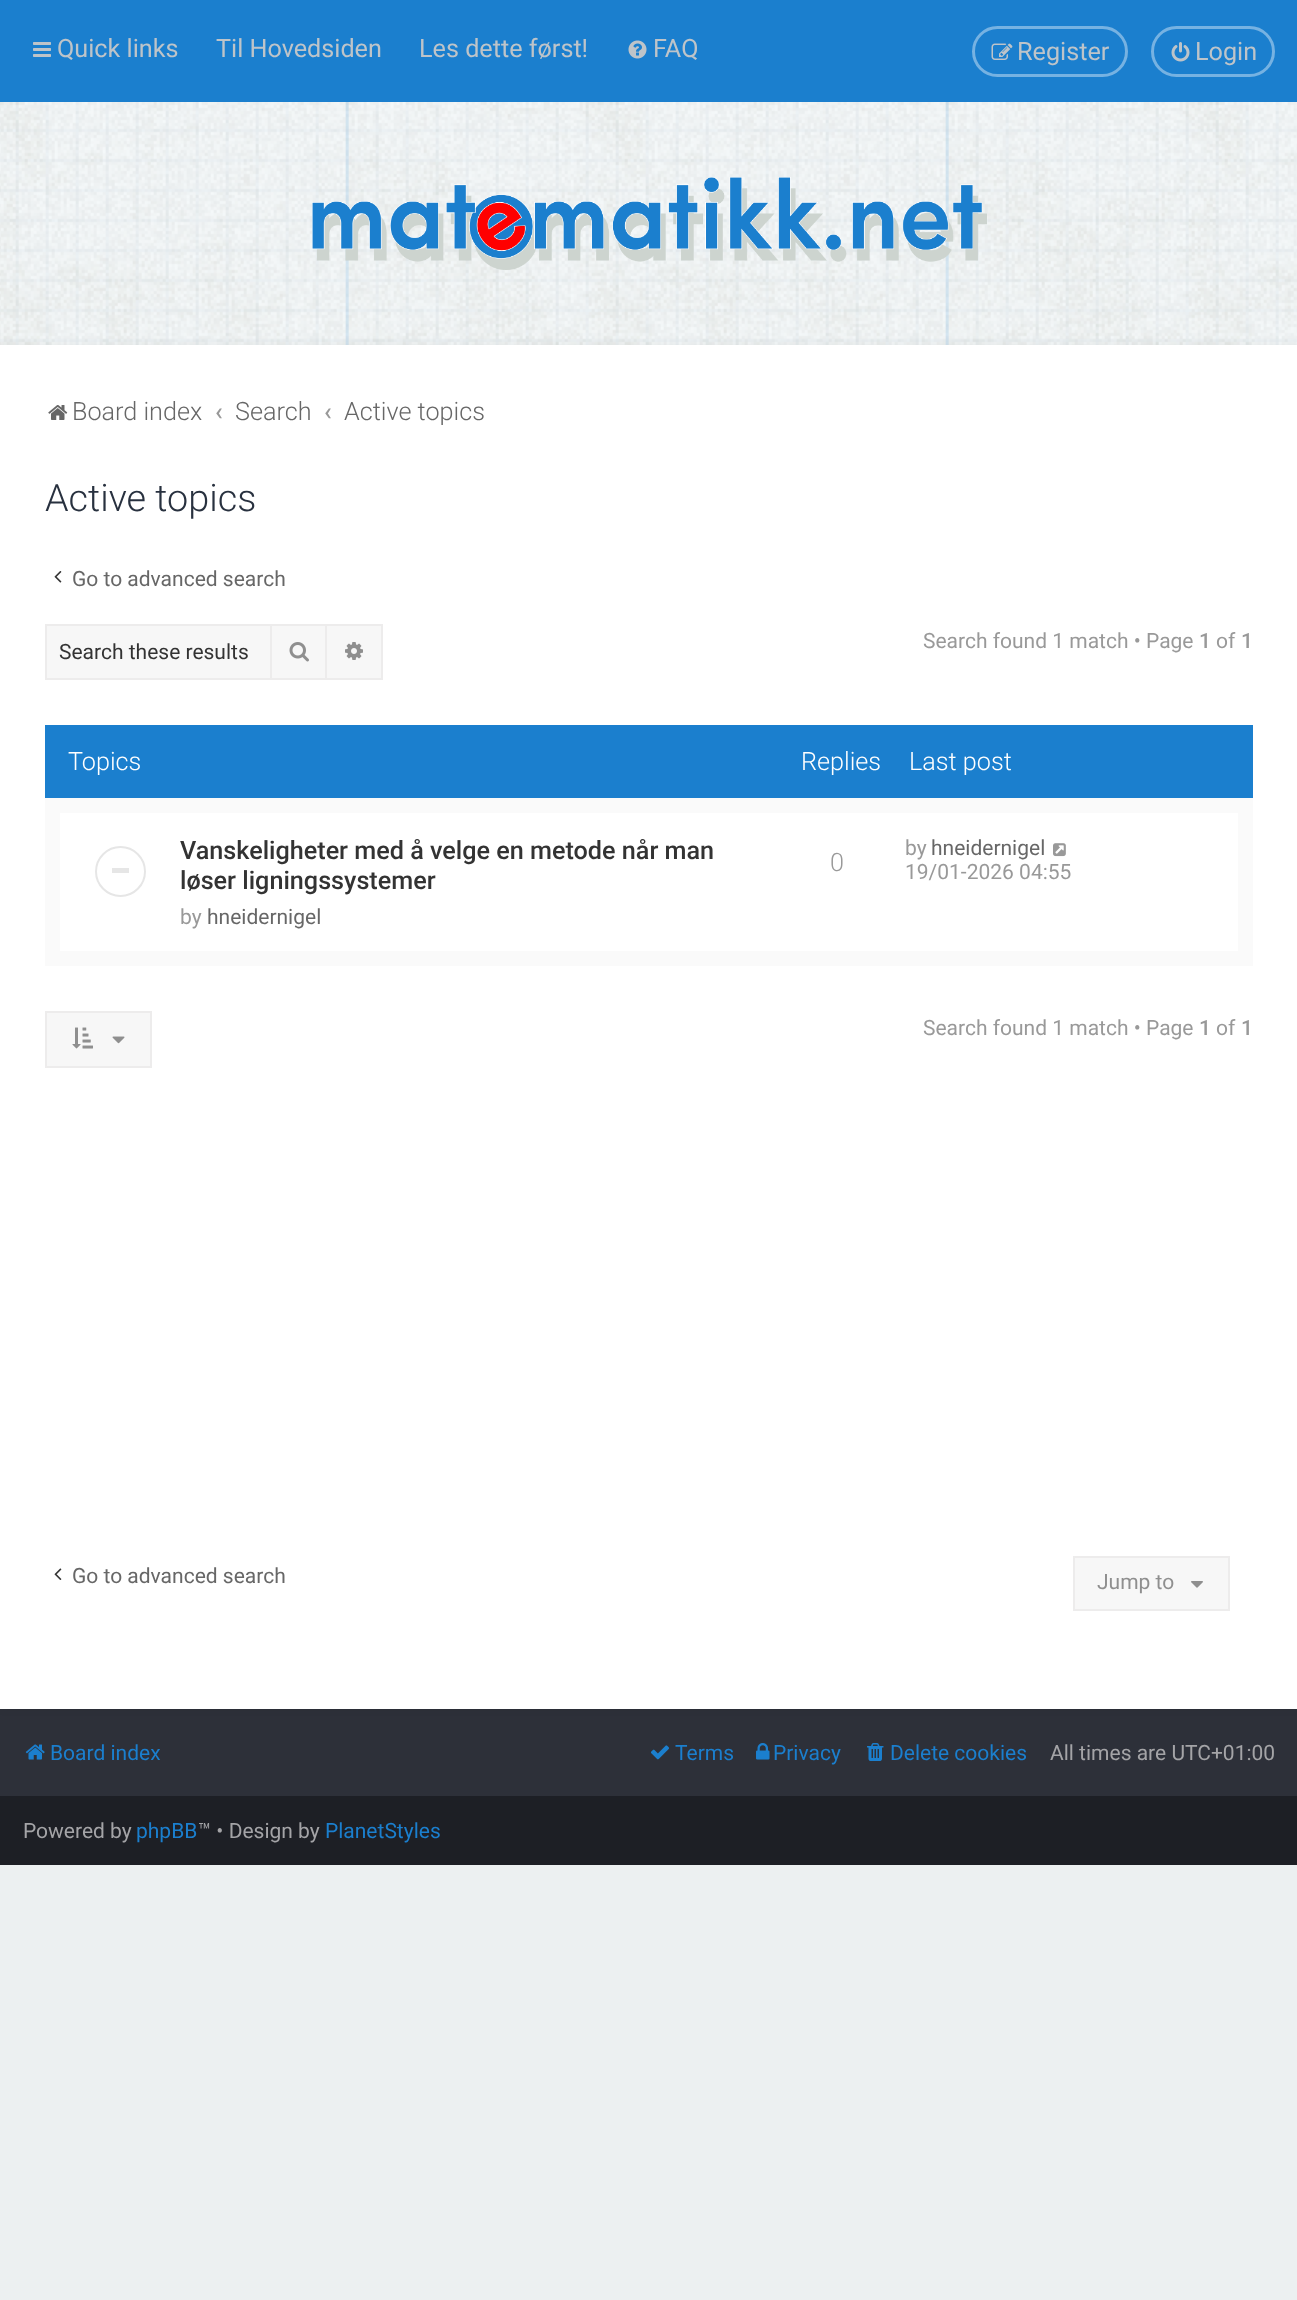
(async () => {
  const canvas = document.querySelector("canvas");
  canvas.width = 1297;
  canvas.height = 2300;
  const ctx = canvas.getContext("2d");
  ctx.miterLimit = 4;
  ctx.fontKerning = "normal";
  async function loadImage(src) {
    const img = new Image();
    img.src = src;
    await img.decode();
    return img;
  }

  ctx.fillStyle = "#ecf0f1";
  ctx.fillRect(0, 0, 1297, 2300);
  ctx.fillStyle = "#1b7fce";
  ctx.fillRect(0, 0, 1297, 102);
  ctx.drawImage(await loadImage("img/1.png"), 33, 42, 18, 15);
  ctx.drawImage(await loadImage("img/2.png"), 628, 40, 19, 19);
  ctx.beginPath();
  ctx.roundRect(973.5, 27.5, 153, 48, 24);
  ctx.strokeStyle = "#76b2e2";
  ctx.lineWidth = 3;
  ctx.stroke();
  ctx.drawImage(await loadImage("img/3.png"), 991, 43, 22, 17);
  ctx.beginPath();
  ctx.roundRect(1152.5, 27.5, 121, 48, 24);
  ctx.stroke();
  ctx.drawImage(await loadImage("img/4.png"), 1171, 42, 19, 20);
  ctx.drawImage(await loadImage("img/5.png"), 0, 102, 1297, 243);
  ctx.drawImage(await loadImage("img/6.png"), 312, 177, 675, 93);
  ctx.fillStyle = "#2d3039";
  ctx.fillRect(0, 1709, 1297, 87);
  ctx.fillStyle = "rgba(0, 0, 0, 0.05)";
  ctx.filter = "blur(4px)";
  ctx.beginPath();
  ctx.rect(0, 345, 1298, 1364);
  ctx.fill();
  ctx.filter = "none";
  ctx.fillStyle = "#ffffff";
  ctx.fillRect(0, 345, 1297, 1364);
  ctx.drawImage(await loadImage("img/7.png"), 48, 405, 20, 15);
  ctx.drawImage(await loadImage("img/8.png"), 54, 571, 8, 12);
  for (const [x, y, w, h, color] of [
    [47, 626, 223, 52, "#f7f7f7"],
    [45, 624, 225, 2, "#edecec"],
    [45, 678, 225, 2, "#edecec"],
    [45, 624, 2, 56, "#edecec"],
  ]) {
    ctx.fillStyle = color;
    ctx.fillRect(x, y, w, h);
  }
  ctx.fillStyle = "#f7f7f7";
  ctx.beginPath();
  ctx.rect(271, 625, 55, 54);
  ctx.fill();
  ctx.strokeStyle = "#edecec";
  ctx.lineWidth = 2;
  ctx.stroke();
  ctx.drawImage(await loadImage("img/9.png"), 289, 642, 20, 20);
  for (const [x, y, w, h, color] of [
    [327, 626, 54, 52, "#f7f7f7"],
    [327, 624, 56, 2, "#edecec"],
    [381, 624, 2, 56, "#edecec"],
    [327, 678, 56, 2, "#edecec"],
  ]) {
    ctx.fillStyle = color;
    ctx.fillRect(x, y, w, h);
  }
  ctx.drawImage(await loadImage("img/10.png"), 345, 642, 18, 18);
  for (const [x, y, w, h, color] of [
    [45, 798, 1208, 168, "#fafafa"],
    [45, 725, 1208, 73, "#1b7fce"],
    [60, 813, 1178, 138, "#ffffff"],
  ]) {
    ctx.fillStyle = color;
    ctx.fillRect(x, y, w, h);
  }
  ctx.beginPath();
  ctx.arc(120.5, 871.5, 24.5, 0, Math.PI * 2);
  ctx.strokeStyle = "#e6e6e6";
  ctx.stroke();
  ctx.fillStyle = "#e6e6e6";
  ctx.fillRect(112, 868, 17, 5);
  ctx.drawImage(await loadImage("img/11.png"), 1053, 843, 13, 14);
  ctx.fillStyle = "#f7f7f7";
  ctx.beginPath();
  ctx.rect(46, 1012, 105, 55);
  ctx.fill();
  ctx.strokeStyle = "#edecec";
  ctx.stroke();
  ctx.drawImage(await loadImage("img/12.png"), 72, 1027, 21, 22);
  ctx.drawImage(await loadImage("img/13.png"), 112, 1036, 13, 8);
  ctx.drawImage(await loadImage("img/14.png"), 54, 1568, 8, 12);
  ctx.beginPath();
  ctx.rect(1074, 1557, 155, 53);
  ctx.fill();
  ctx.stroke();
  ctx.drawImage(await loadImage("img/15.png"), 1191, 1581, 12, 7);
  ctx.drawImage(await loadImage("img/16.png"), 25, 1744, 20, 16);
  ctx.drawImage(await loadImage("img/17.png"), 650, 1745, 20, 15);
  ctx.drawImage(await loadImage("img/18.png"), 756, 1743, 14, 17);
  ctx.drawImage(await loadImage("img/19.png"), 867, 1743, 17, 18);
  ctx.fillStyle = "#1d1f25";
  ctx.fillRect(0, 1796, 1297, 69);
  ctx.font = "25.2px Roboto";
  ctx.fillStyle = "#bec4c9";
  for (const [text, x, y] of [
    ["Quick links", 57, 57],
    ["Til Hovedsiden", 216, 57],
    ["Les dette først!", 419, 57],
    ["FAQ", 653, 57],
    ["Register", 1017, 60],
    ["Login", 1195, 60],
  ]) {
    ctx.fillText(text, x, y);
  }
  ctx.font = "300 25.2px Roboto";
  ctx.fillStyle = "#676767";
  ctx.fillText("Board index", 72, 420);
  ctx.font = "500 25.2px Roboto";
  ctx.fillStyle = "#999999";
  ctx.fillText("‹", 215, 420);
  ctx.font = "300 25.2px Roboto";
  ctx.fillStyle = "#676767";
  ctx.fillText("Search", 235, 420);
  ctx.font = "500 25.2px Roboto";
  ctx.fillStyle = "#999999";
  ctx.fillText("‹", 324, 420);
  ctx.font = "300 25.2px Roboto";
  ctx.fillStyle = "#676767";
  ctx.fillText("Active topics", 344, 420);
  ctx.font = "300 37.75px Roboto";
  ctx.fillStyle = "#28313f";
  ctx.fillText("Active topics", 45, 511);
  ctx.font = "21px Roboto";
  ctx.fillStyle = "#676767";
  ctx.fillText("Go to advanced search", 72, 586);
  ctx.fillStyle = "#333333";
  ctx.fillText("Search these results", 59, 659);
  ctx.fillStyle = "#999999";
  ctx.fillText("Search found 1 match • Page", 923, 648);
  ctx.font = "500 21px Roboto";
  ctx.fillText("1", 1199, 648);
  ctx.font = "21px Roboto";
  ctx.fillText("of", 1216, 648);
  ctx.font = "500 21px Roboto";
  ctx.fillText("1", 1241, 648);
  ctx.font = "300 25.2px Roboto";
  ctx.fillStyle = "#ffffff";
  for (const [text, x, y] of [
    ["Topics", 68, 770],
    ["Replies", 801, 770],
    ["Last post", 909, 770],
  ]) {
    ctx.fillText(text, x, y);
  }
  ctx.font = "500 25.2px Roboto";
  ctx.fillStyle = "#333333";
  ctx.fillText("Vanskeligheter med å velge en metode når man", 180, 859);
  ctx.fillText("løser ligningssystemer", 180, 889);
  ctx.font = "21px Roboto";
  ctx.fillStyle = "#999999";
  ctx.fillText("by", 180, 924);
  ctx.fillStyle = "#676767";
  ctx.fillText("hneidernigel", 207, 924);
  ctx.font = "300 25.2px Roboto";
  ctx.fillStyle = "#999999";
  ctx.fillText("0", 830, 871);
  ctx.font = "21px Roboto";
  ctx.fillText("by", 905, 855);
  ctx.fillStyle = "#676767";
  ctx.fillText("hneidernigel", 931, 855);
  ctx.fillStyle = "#999999";
  ctx.fillText("19/01-2026 04:55", 905, 879);
  ctx.fillText("Search found 1 match • Page", 923, 1035);
  ctx.font = "500 21px Roboto";
  ctx.fillText("1", 1199, 1035);
  ctx.font = "21px Roboto";
  ctx.fillText("of", 1216, 1035);
  ctx.font = "500 21px Roboto";
  ctx.fillText("1", 1241, 1035);
  ctx.font = "21px Roboto";
  ctx.fillStyle = "#676767";
  ctx.fillText("Go to advanced search", 72, 1583);
  ctx.fillStyle = "#8f8f8f";
  ctx.fillText("Jump to", 1097, 1589);
  ctx.fillStyle = "#1b7fce";
  for (const [text, x, y] of [
    ["Board index", 50, 1760],
    ["Terms", 675, 1760],
    ["Privacy", 773, 1760],
    ["Delete cookies", 890, 1760],
  ]) {
    ctx.fillText(text, x, y);
  }
  ctx.fillStyle = "#a4a4a7";
  ctx.fillText("All times are UTC+01:00", 1050, 1760);
  ctx.fillText("Powered by", 23, 1838);
  ctx.fillStyle = "#1b7fce";
  ctx.fillText("phpBB", 136, 1838);
  ctx.fillStyle = "#a4a4a7";
  ctx.fillText("™ • Design by", 198, 1838);
  ctx.fillStyle = "#1b7fce";
  ctx.fillText("PlanetStyles", 325, 1838);
})();
